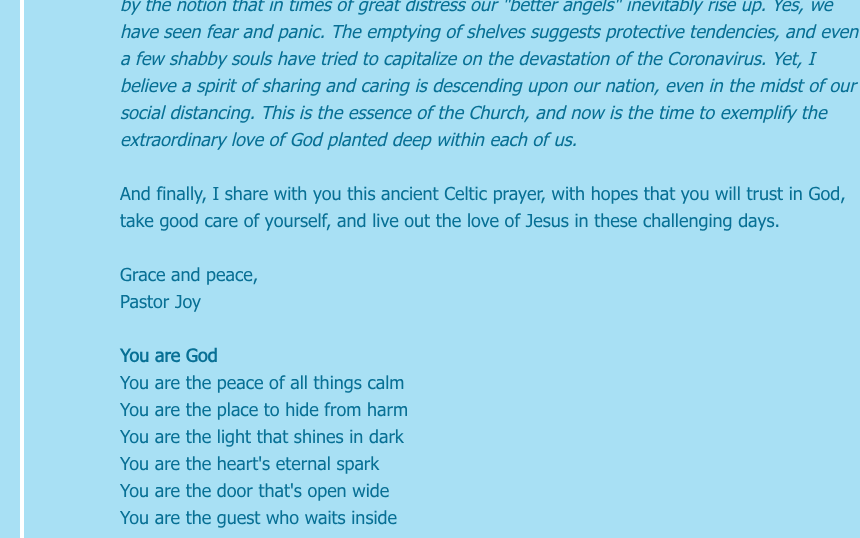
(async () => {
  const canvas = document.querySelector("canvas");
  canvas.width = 860;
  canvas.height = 538;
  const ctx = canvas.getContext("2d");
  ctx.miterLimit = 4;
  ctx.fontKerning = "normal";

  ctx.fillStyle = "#a8e0f4";
  ctx.fillRect(0, 0, 860, 538);
  ctx.strokeStyle = "#ffffff";
  ctx.lineWidth = 4;
  ctx.strokeRect(22, -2, 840, 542);
  ctx.font = "italic 18px tahoma";
  ctx.fillStyle = "#087095";
  for (const [text, x, y] of [
    ["by the notion that in times of great distress our \"better angels\" inevitably rise up. Yes, we", 120, 11],
    ["have seen fear and panic. The emptying of shelves suggests protective tendencies, and even", 120, 38],
    ["a few shabby souls have tried to capitalize on the devastation of the Coronavirus. Yet, I", 120, 65],
    ["believe a spirit of sharing and caring is descending upon our nation, even in the midst of our", 120, 92],
    ["social distancing. This is the essence of the Church, and now is the time to exemplify the", 120, 119],
    ["extraordinary love of God planted deep within each of us.", 120, 146],
  ]) {
    ctx.fillText(text, x, y);
  }
  ctx.font = "18px tahoma";
  for (const [text, x, y] of [
    ["And finally, I share with you this ancient Celtic prayer, with hopes that you will trust in God,", 120, 200],
    ["take good care of yourself, and live out the love of Jesus in these challenging days.", 120, 227],
    ["Grace and peace,", 120, 281],
    ["Pastor Joy", 120, 308],
  ]) {
    ctx.fillText(text, x, y);
  }
  ctx.font = "bold 18px tahoma";
  ctx.fillText("You are God", 120, 362);
  ctx.font = "18px tahoma";
  for (const [text, x, y] of [
    ["You are the peace of all things calm", 120, 389],
    ["You are the place to hide from harm", 120, 416],
    ["You are the light that shines in dark", 120, 443],
    ["You are the heart's eternal spark", 120, 470],
    ["You are the door that's open wide", 120, 497],
    ["You are the guest who waits inside", 120, 524],
  ]) {
    ctx.fillText(text, x, y);
  }
})();
